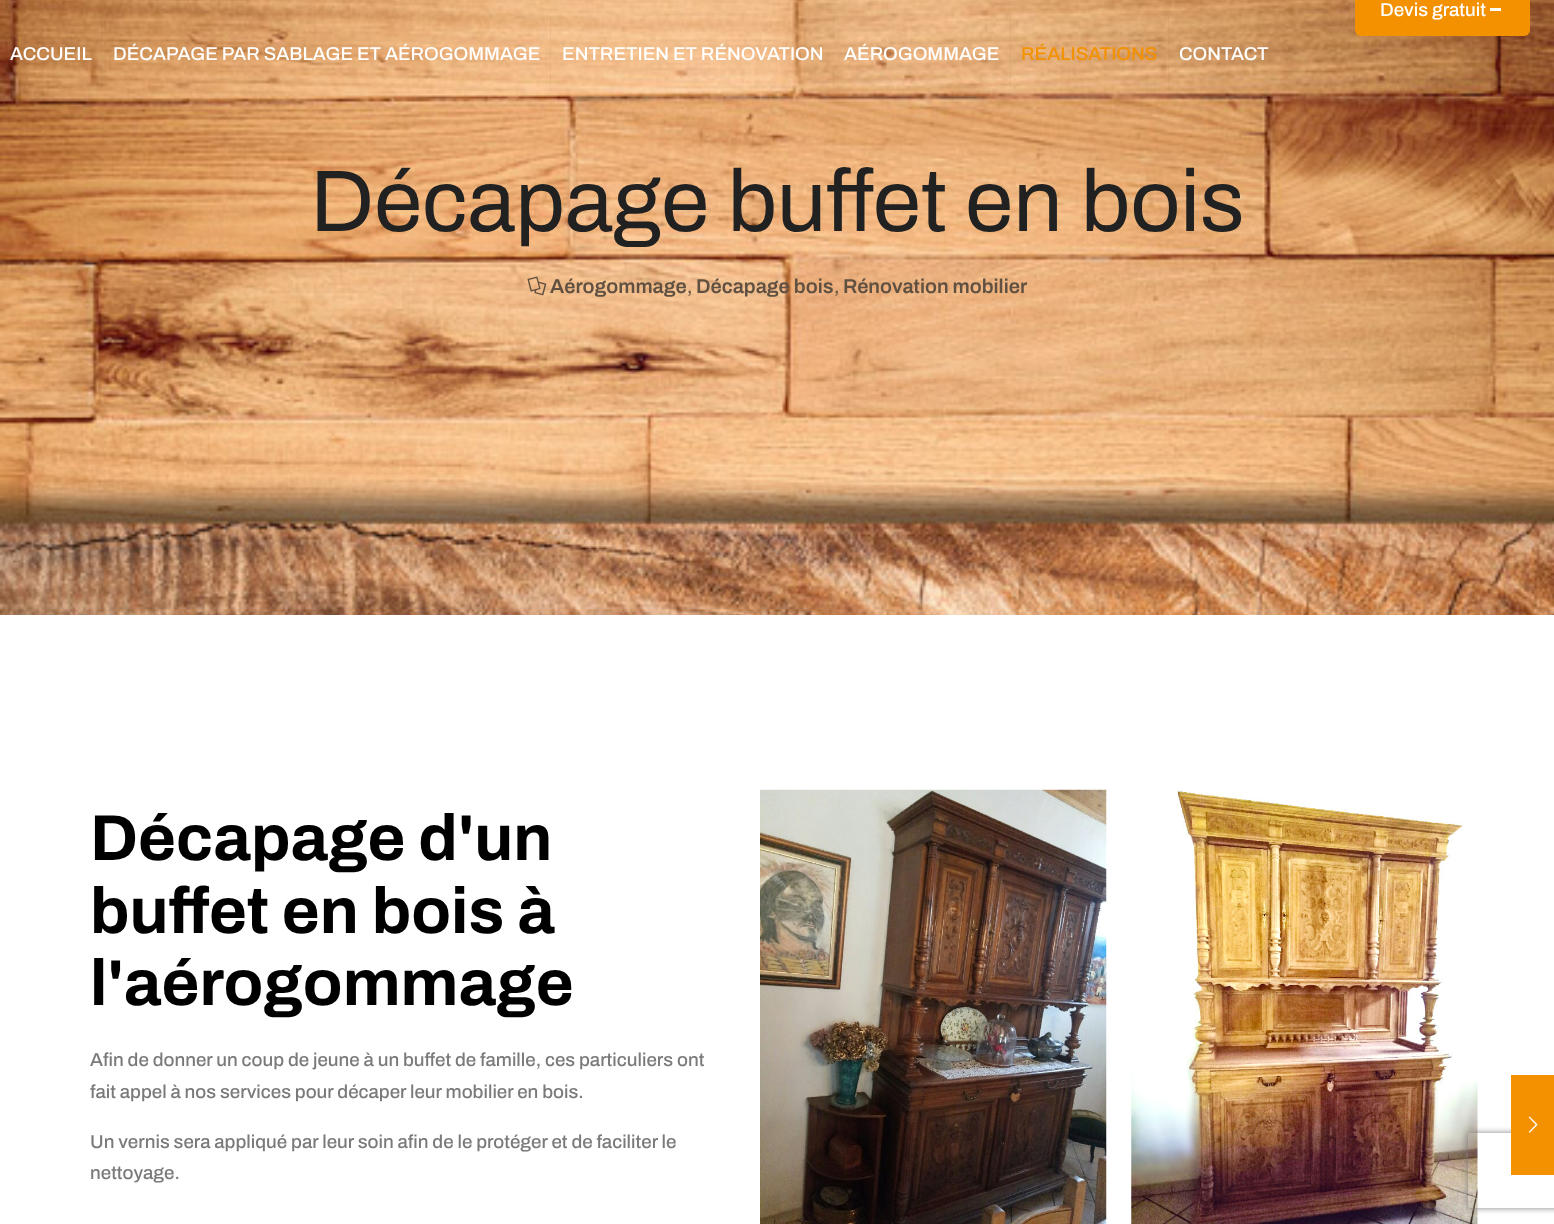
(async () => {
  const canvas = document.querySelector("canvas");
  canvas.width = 1554;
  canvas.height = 1224;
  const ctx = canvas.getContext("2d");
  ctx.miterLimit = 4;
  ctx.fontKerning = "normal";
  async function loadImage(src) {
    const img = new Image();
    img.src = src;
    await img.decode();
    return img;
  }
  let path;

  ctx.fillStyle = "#ffffff";
  ctx.fillRect(0, 0, 1554, 1224);
  ctx.drawImage(await loadImage("img/1.png"), 0, 0, 1554, 615);
  ctx.fillStyle = "#f39100";
  ctx.beginPath();
  ctx.roundRect(1355, -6, 175, 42, 6);
  ctx.fill();
  for (const [x, y, w, h, color] of [
    [1490, 8, 11, 3, "#ffffff"],
    [101, 16, 1, 75, "rgba(0, 0, 0, 0.03)"],
    [550, 16, 1, 75, "rgba(0, 0, 0, 0.03)"],
    [833, 16, 1, 75, "rgba(0, 0, 0, 0.03)"],
    [1010, 16, 1, 75, "rgba(0, 0, 0, 0.03)"],
    [1168, 16, 1, 75, "rgba(0, 0, 0, 0.03)"],
  ]) {
    ctx.fillStyle = color;
    ctx.fillRect(x, y, w, h);
  }
  ctx.drawImage(await loadImage("img/2.png"), 527, 276, 20, 20);
  ctx.fillStyle = "rgba(33, 33, 33, 0.2)";
  path = new Path2D("M760 534L778 551L796 534C797 533 799 534 799 535C799 536 781 554 779 555H777L761 540C761 539 755 535 759 534Z");
  ctx.fill(path);
  ctx.drawImage(await loadImage("img/3.png"), 760, 789, 347, 435);
  ctx.drawImage(await loadImage("img/4.png"), 1131, 790, 347, 434);
  ctx.save();
  path = new Path2D("M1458 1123H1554V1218H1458ZM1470.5 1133H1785.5C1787 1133 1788 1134 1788 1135.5V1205.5C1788 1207 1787 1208 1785.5 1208H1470.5C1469 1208 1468 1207 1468 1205.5V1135.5C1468 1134 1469 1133 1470.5 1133Z");
  ctx.clip(path, "evenodd");
  ctx.fillStyle = "#808080";
  ctx.filter = "blur(3px)";
  ctx.beginPath();
  ctx.roundRect(1468, 1133, 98, 75, 2.5);
  ctx.fill();
  ctx.filter = "none";
  ctx.restore();
  ctx.fillStyle = "#f39100";
  ctx.fillRect(1511, 1075, 43, 100);
  ctx.drawImage(await loadImage("img/5.png"), 1528, 1116, 10, 17);
  ctx.font = "500 18.75px Archivo";
  ctx.fillStyle = "#ffffff";
  for (const [text, x, y] of [
    ["Devis gratuit", 1380, 16],
    ["ACCUEIL", 10, 60],
    ["DÉCAPAGE PAR SABLAGE ET AÉROGOMMAGE", 113, 60],
    ["ENTRETIEN ET RÉNOVATION", 562, 60],
    ["AÉROGOMMAGE", 844, 60],
  ]) {
    ctx.fillText(text, x, y);
  }
  ctx.fillStyle = "#f39100";
  ctx.fillText("RÉALISATIONS", 1021, 60);
  ctx.fillStyle = "#ffffff";
  ctx.fillText("CONTACT", 1179, 60);
  ctx.font = "87.5px Archivo";
  ctx.fillStyle = "#212121";
  ctx.fillText("Décapage buffet en bois", 310, 231);
  ctx.font = "600 20px Archivo";
  ctx.fillStyle = "#5f5041";
  ctx.fillText("Aérogommage", 550, 293);
  ctx.font = "500 18.75px Archivo";
  ctx.fillText(",", 687, 293);
  ctx.font = "600 20px Archivo";
  ctx.fillText("Décapage bois", 696, 293);
  ctx.font = "500 18.75px Archivo";
  ctx.fillText(",", 834, 293);
  ctx.font = "600 20px Archivo";
  ctx.fillText("Rénovation mobilier", 843, 293);
  ctx.font = "bold 65px Archivo";
  ctx.fillStyle = "#000000";
  for (const [text, x, y] of [
    ["Décapage d'un", 90, 860],
    ["buffet en bois à", 90, 933],
    ["l'aérogommage", 90, 1005],
  ]) {
    ctx.fillText(text, x, y);
  }
  ctx.font = "500 18.75px Archivo";
  ctx.fillStyle = "#7a7a7a";
  for (const [text, x, y] of [
    ["Afin de donner un coup de jeune à un buffet de famille, ces particuliers ont", 90, 1066],
    ["fait appel à nos services pour décaper leur mobilier en bois.", 90, 1098],
    ["Un vernis sera appliqué par leur soin afin de le protéger et de faciliter le", 90, 1148],
    ["nettoyage.", 90, 1179],
  ]) {
    ctx.fillText(text, x, y);
  }
})();
